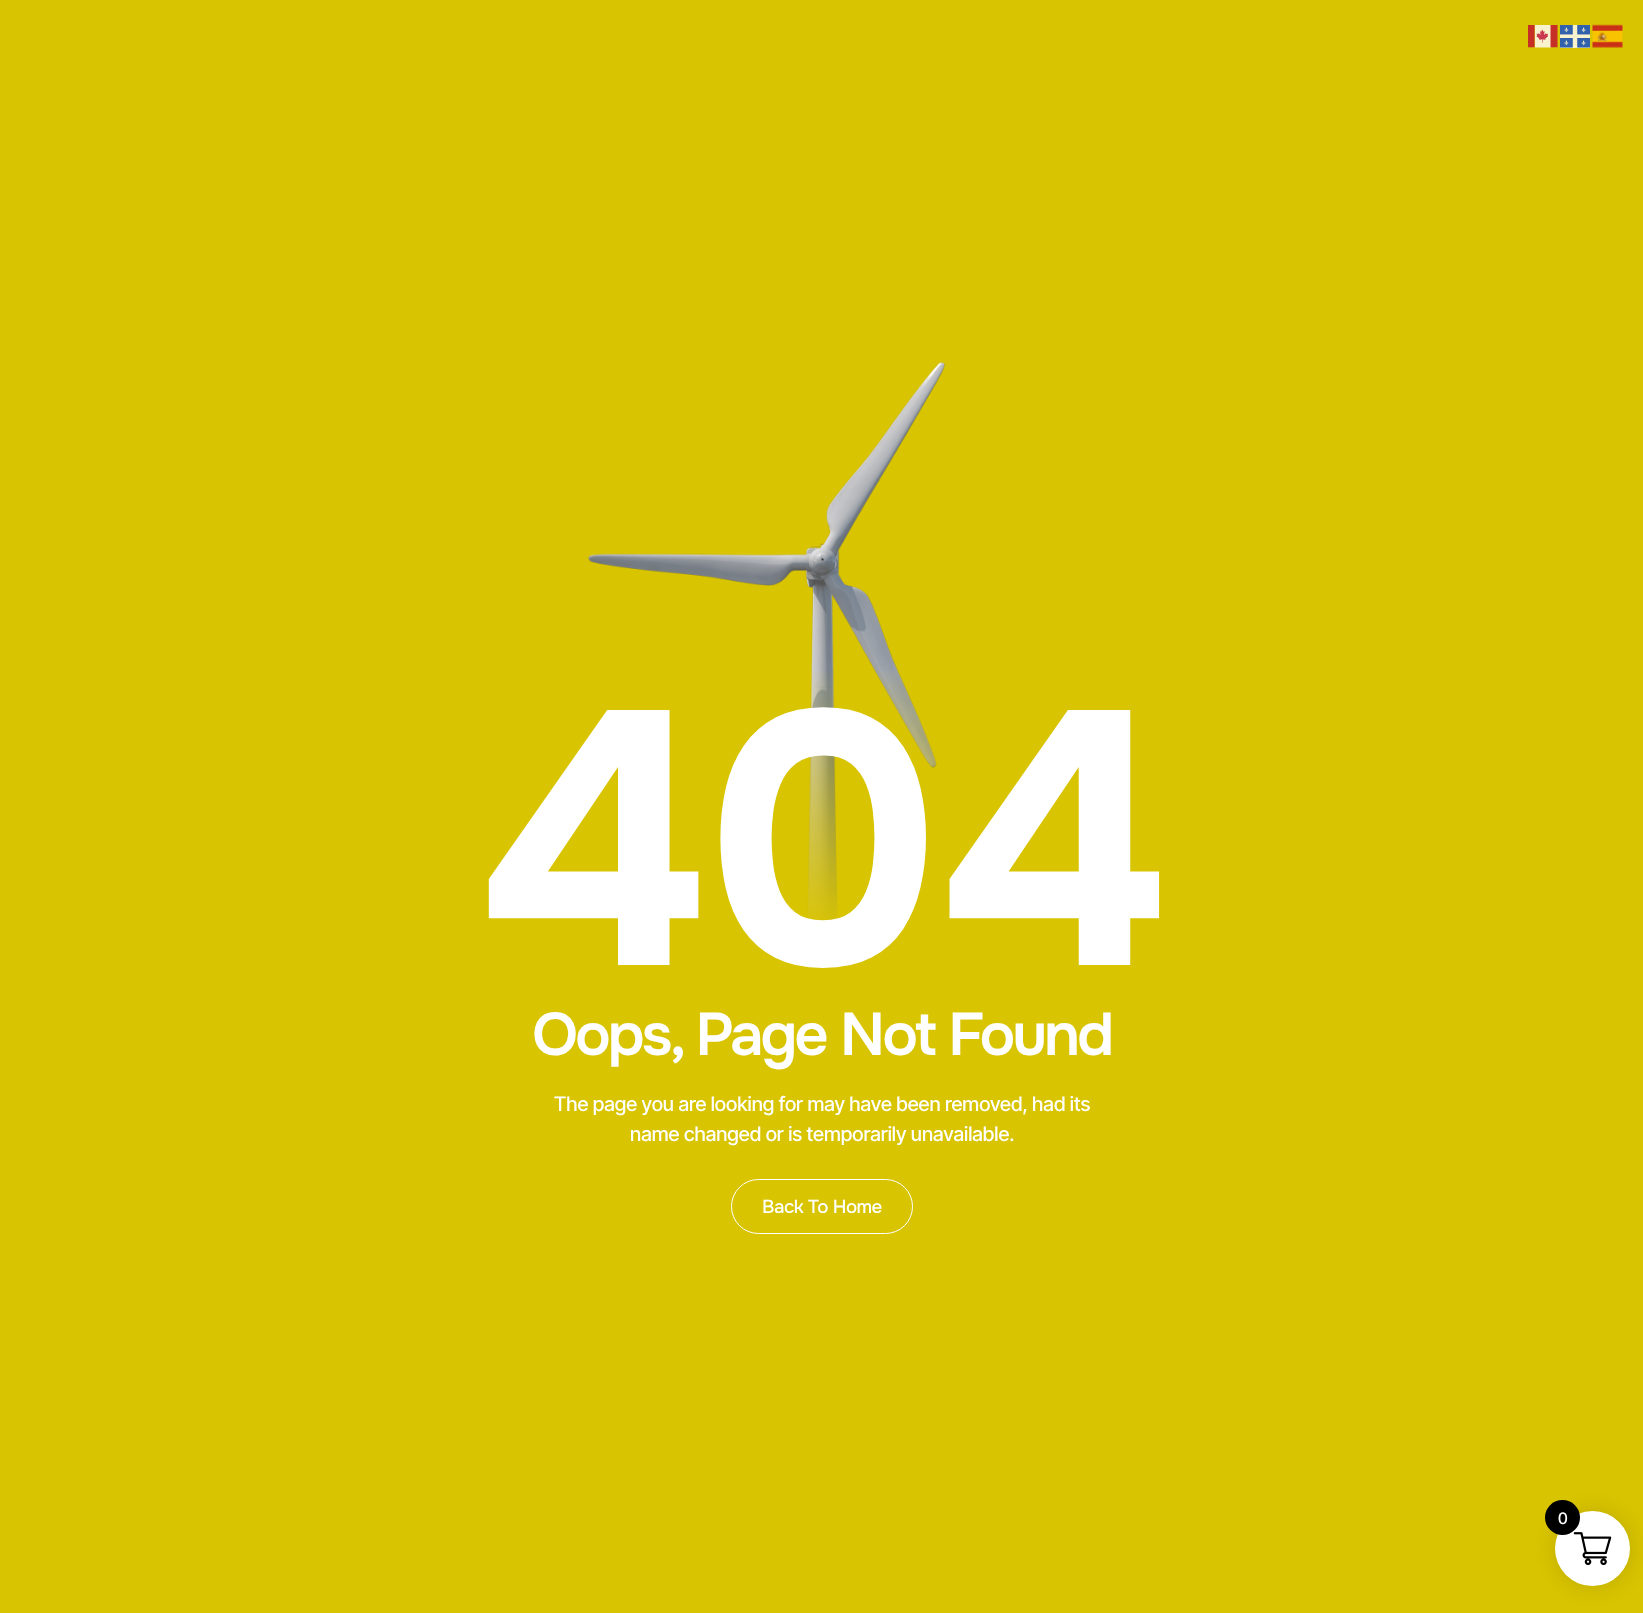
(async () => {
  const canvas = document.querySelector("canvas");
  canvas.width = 1643;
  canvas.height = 1613;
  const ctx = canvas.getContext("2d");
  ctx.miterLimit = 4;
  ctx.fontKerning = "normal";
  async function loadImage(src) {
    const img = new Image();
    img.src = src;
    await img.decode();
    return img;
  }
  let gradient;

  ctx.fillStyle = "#d9c401";
  ctx.fillRect(0, 0, 1643, 1613);
  ctx.drawImage(await loadImage("img/1.png"), 1528, 25, 30, 23);
  ctx.drawImage(await loadImage("img/2.png"), 1560, 25, 30, 23);
  ctx.drawImage(await loadImage("img/3.png"), 1592, 24, 31, 24);
  ctx.drawImage(await loadImage("img/4.png"), 588, 362, 358, 569);
  gradient = ctx.createLinearGradient(822, 666, 822, 1003);
  gradient.addColorStop(0, "rgba(217, 196, 1, 0)");
  gradient.addColorStop(0.79, "#d9c401");
  ctx.fillStyle = gradient;
  ctx.fillRect(806, 672, 131, 259);
  ctx.beginPath();
  ctx.roundRect(731.5, 1179.5, 181, 54, 27);
  ctx.strokeStyle = "#ffffff";
  ctx.stroke();
  ctx.fillStyle = "rgba(0, 0, 0, 0.1)";
  ctx.filter = "blur(9.5px)";
  ctx.beginPath();
  ctx.roundRect(1553, 1509, 80, 80, 40);
  ctx.fill();
  ctx.filter = "none";
  ctx.fillStyle = "#ffffff";
  ctx.beginPath();
  ctx.arc(1592.5, 1548.5, 37.5, 0, Math.PI * 2);
  ctx.fill();
  ctx.drawImage(await loadImage("img/5.png"), 1573, 1532, 39, 34);
  ctx.fillStyle = "#000000";
  ctx.beginPath();
  ctx.arc(1562.5, 1517.5, 17.5, 0, Math.PI * 2);
  ctx.fill();
  ctx.letterSpacing = "-3.1px";
  ctx.font = "bold 360px Onest";
  ctx.fillStyle = "#ffffff";
  ctx.fillText("404", 478, 965);
  ctx.wordSpacing = "0.5px";
  ctx.font = "600 60px Onest";
  ctx.fillText("Oops, Page Not Found", 532, 1055);
  ctx.letterSpacing = "0px";
  ctx.wordSpacing = "0px";
  ctx.font = "500 20px Inter Tight";
  ctx.fillText("The page you are looking for may have been removed, had its", 554, 1111);
  ctx.fillText("name changed or is temporarily unavailable.", 630, 1141);
  ctx.letterSpacing = "-0.5px";
  ctx.font = "500 18.75px Onest";
  ctx.fillText("Back To Home", 762, 1213);
  ctx.letterSpacing = "0px";
  ctx.font = "500 16px Inter Tight";
  ctx.fillText("0", 1558, 1524);
})();
